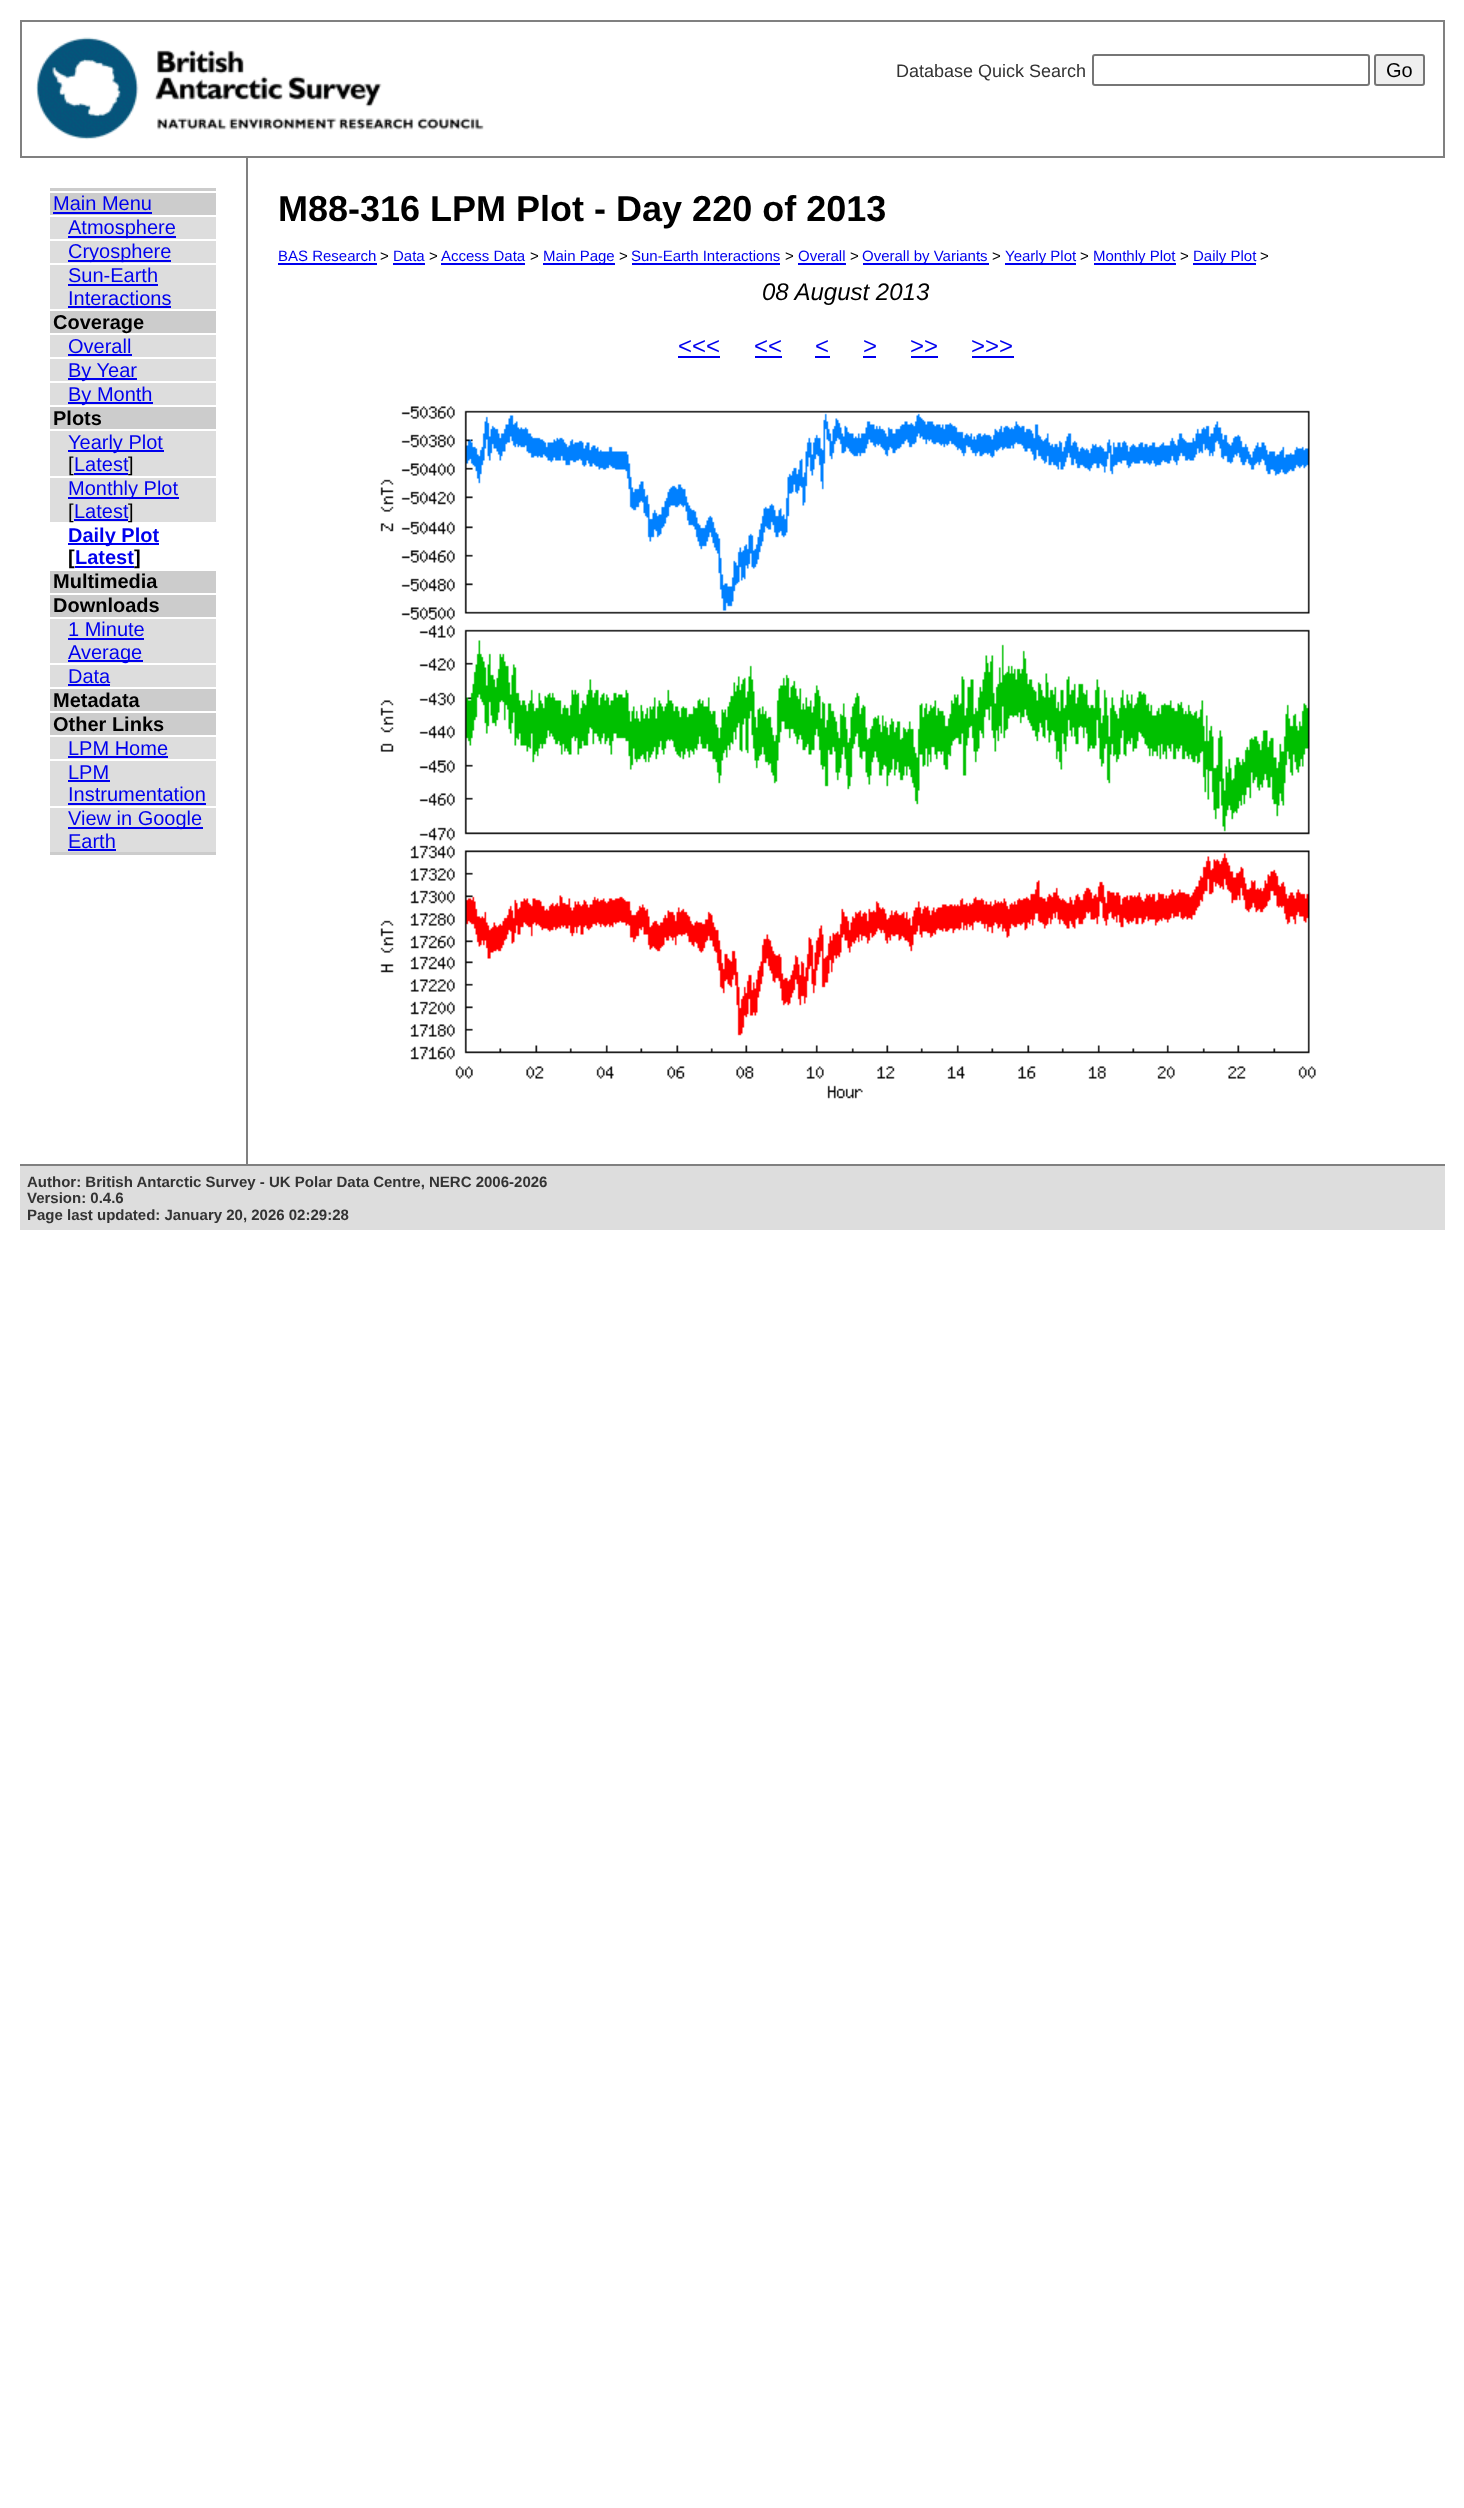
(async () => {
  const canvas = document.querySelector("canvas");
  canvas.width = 1464;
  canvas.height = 2508;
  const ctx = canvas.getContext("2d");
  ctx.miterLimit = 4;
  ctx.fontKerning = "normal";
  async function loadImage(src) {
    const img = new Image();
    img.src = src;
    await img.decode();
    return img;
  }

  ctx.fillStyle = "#ffffff";
  ctx.fillRect(0, 0, 1464, 2508);
  ctx.strokeStyle = "#808080";
  ctx.lineWidth = 2;
  ctx.strokeRect(21, 21, 1423, 136);
  ctx.drawImage(await loadImage("img/1.png"), 36, 37, 448, 103);
  ctx.beginPath();
  ctx.roundRect(1093, 55, 276, 30, 2);
  ctx.strokeStyle = "#767676";
  ctx.stroke();
  ctx.fillStyle = "#efefef";
  ctx.beginPath();
  ctx.roundRect(1375, 55, 49, 30, 2);
  ctx.fill();
  ctx.stroke();
  for (const [x, y, w, h, color] of [
    [246, 158, 2, 1006, "#808080"],
    [50, 188, 166, 667, "#cccccc"],
    [50, 191, 166, 2, "#ffffff"],
    [53, 212, 99, 2, "#0000ee"],
    [50, 217, 166, 92, "#dddddd"],
    [50, 215, 166, 2, "#ffffff"],
    [68, 236, 108, 2, "#0000ee"],
    [50, 239, 166, 2, "#ffffff"],
    [68, 260, 103, 2, "#0000ee"],
    [50, 263, 166, 2, "#ffffff"],
    [68, 284, 90, 2, "#0000ee"],
    [68, 306, 103, 2, "#0000ee"],
    [50, 309, 166, 2, "#ffffff"],
    [50, 335, 166, 70, "#dddddd"],
    [50, 333, 166, 2, "#ffffff"],
    [68, 354, 64, 2, "#0000ee"],
    [50, 357, 166, 2, "#ffffff"],
    [68, 378, 69, 2, "#0000ee"],
    [50, 381, 166, 2, "#ffffff"],
    [68, 402, 85, 2, "#0000ee"],
    [50, 405, 166, 2, "#ffffff"],
    [50, 431, 166, 45, "#dddddd"],
    [50, 429, 166, 2, "#ffffff"],
    [68, 450, 96, 2, "#0000ee"],
    [74, 473, 54, 2, "#0000ee"],
    [50, 478, 166, 44, "#dddddd"],
    [50, 476, 166, 2, "#ffffff"],
    [68, 497, 111, 2, "#0000ee"],
    [74, 519, 54, 2, "#0000ee"],
    [50, 522, 166, 49, "#ffffff"],
    [68, 543, 91, 2, "#0000ee"],
    [75, 566, 59, 2, "#0000ee"],
    [50, 593, 166, 2, "#ffffff"],
    [50, 619, 166, 68, "#dddddd"],
    [50, 617, 166, 2, "#ffffff"],
    [68, 638, 76, 2, "#0000ee"],
    [68, 660, 75, 2, "#0000ee"],
    [50, 663, 166, 2, "#ffffff"],
    [68, 684, 42, 2, "#0000ee"],
    [50, 687, 166, 2, "#ffffff"],
    [50, 711, 166, 2, "#ffffff"],
    [50, 737, 166, 115, "#dddddd"],
    [50, 735, 166, 2, "#ffffff"],
    [68, 756, 100, 2, "#0000ee"],
    [50, 759, 166, 2, "#ffffff"],
    [68, 780, 42, 2, "#0000ee"],
    [68, 803, 138, 2, "#0000ee"],
    [50, 806, 166, 2, "#ffffff"],
    [68, 827, 135, 2, "#0000ee"],
    [68, 849, 48, 2, "#0000ee"],
    [278, 263, 99, 2, "#0000ee"],
    [393, 263, 32, 2, "#0000ee"],
    [441, 263, 84, 2, "#0000ee"],
    [543, 263, 72, 2, "#0000ee"],
    [632, 263, 148, 2, "#0000ee"],
    [798, 263, 48, 2, "#0000ee"],
    [863, 263, 126, 2, "#0000ee"],
    [1005, 263, 71, 2, "#0000ee"],
    [1094, 263, 82, 2, "#0000ee"],
    [1193, 263, 63, 2, "#0000ee"],
    [678, 356, 42, 2, "#0000ee"],
    [755, 356, 27, 2, "#0000ee"],
    [815, 356, 15, 2, "#0000ee"],
    [863, 356, 13, 2, "#0000ee"],
    [911, 356, 27, 2, "#0000ee"],
    [972, 356, 42, 2, "#0000ee"],
  ]) {
    ctx.fillStyle = color;
    ctx.fillRect(x, y, w, h);
  }
  ctx.drawImage(await loadImage("img/2.png"), 380, 406, 936, 693);
  ctx.fillStyle = "#dddddd";
  ctx.fillRect(20, 1166, 1425, 64);
  ctx.fillStyle = "#808080";
  ctx.fillRect(20, 1164, 1425, 2);
  ctx.font = "18px Liberation Sans";
  ctx.fillStyle = "#333333";
  ctx.fillText("Database Quick Search", 896, 77);
  ctx.font = "20px Liberation Sans";
  ctx.fillStyle = "#000000";
  ctx.fillText("Go", 1386, 77);
  ctx.fillStyle = "#0000ee";
  for (const [text, x, y] of [
    ["Main Menu", 53, 210],
    ["Atmosphere", 68, 234],
    ["Cryosphere", 68, 258],
    ["Sun-Earth", 68, 282],
    ["Interactions", 68, 305],
  ]) {
    ctx.fillText(text, x, y);
  }
  ctx.font = "bold 20px Liberation Sans";
  ctx.fillStyle = "#000000";
  ctx.fillText("Coverage", 53, 329);
  ctx.font = "20px Liberation Sans";
  ctx.fillStyle = "#0000ee";
  for (const [text, x, y] of [
    ["Overall", 68, 353],
    ["By Year", 68, 377],
    ["By Month", 68, 401],
  ]) {
    ctx.fillText(text, x, y);
  }
  ctx.font = "bold 20px Liberation Sans";
  ctx.fillStyle = "#000000";
  ctx.fillText("Plots", 53, 425);
  ctx.font = "20px Liberation Sans";
  ctx.fillStyle = "#0000ee";
  ctx.fillText("Yearly Plot", 68, 449);
  ctx.fillStyle = "#000000";
  ctx.fillText("[", 68, 471);
  ctx.fillStyle = "#0000ee";
  ctx.fillText("Latest", 74, 471);
  ctx.fillStyle = "#000000";
  ctx.fillText("]", 128, 471);
  ctx.fillStyle = "#0000ee";
  ctx.fillText("Monthly Plot", 68, 495);
  ctx.fillStyle = "#000000";
  ctx.fillText("[", 68, 518);
  ctx.fillStyle = "#0000ee";
  ctx.fillText("Latest", 74, 518);
  ctx.fillStyle = "#000000";
  ctx.fillText("]", 128, 518);
  ctx.font = "bold 20px Liberation Sans";
  ctx.fillStyle = "#0000ee";
  ctx.fillText("Daily Plot", 68, 542);
  ctx.fillStyle = "#000000";
  ctx.fillText("[", 68, 564);
  ctx.fillStyle = "#0000ee";
  ctx.fillText("Latest", 75, 564);
  ctx.fillStyle = "#000000";
  for (const [text, x, y] of [
    ["]", 134, 564],
    ["Multimedia", 53, 588],
    ["Downloads", 53, 612],
  ]) {
    ctx.fillText(text, x, y);
  }
  ctx.font = "20px Liberation Sans";
  ctx.fillStyle = "#0000ee";
  for (const [text, x, y] of [
    ["1 Minute", 68, 636],
    ["Average", 68, 659],
    ["Data", 68, 683],
  ]) {
    ctx.fillText(text, x, y);
  }
  ctx.font = "bold 20px Liberation Sans";
  ctx.fillStyle = "#000000";
  ctx.fillText("Metadata", 53, 707);
  ctx.fillText("Other Links", 53, 731);
  ctx.font = "20px Liberation Sans";
  ctx.fillStyle = "#0000ee";
  for (const [text, x, y] of [
    ["LPM Home", 68, 755],
    ["LPM", 68, 779],
    ["Instrumentation", 68, 801],
    ["View in Google", 68, 825],
    ["Earth", 68, 848],
  ]) {
    ctx.fillText(text, x, y);
  }
  ctx.font = "bold 36px Liberation Sans";
  ctx.fillStyle = "#000000";
  ctx.fillText("M88-316 LPM Plot - Day 220 of 2013", 278, 221);
  ctx.font = "15px Liberation Sans";
  ctx.fillStyle = "#0000ee";
  ctx.fillText("BAS Research", 278, 261);
  ctx.fillStyle = "#000000";
  ctx.fillText(">", 380, 261);
  ctx.fillStyle = "#0000ee";
  ctx.fillText("Data", 393, 261);
  ctx.fillStyle = "#000000";
  ctx.fillText(">", 429, 261);
  ctx.fillStyle = "#0000ee";
  ctx.fillText("Access Data", 441, 261);
  ctx.fillStyle = "#000000";
  ctx.fillText(">", 530, 261);
  ctx.fillStyle = "#0000ee";
  ctx.fillText("Main Page", 543, 261);
  ctx.fillStyle = "#000000";
  ctx.fillText(">", 619, 261);
  ctx.fillStyle = "#0000ee";
  ctx.fillText("Sun-Earth Interactions", 631, 261);
  ctx.fillStyle = "#000000";
  ctx.fillText(">", 785, 261);
  ctx.fillStyle = "#0000ee";
  ctx.fillText("Overall", 798, 261);
  ctx.fillStyle = "#000000";
  ctx.fillText(">", 850, 261);
  ctx.fillStyle = "#0000ee";
  ctx.fillText("Overall by Variants", 862, 261);
  ctx.fillStyle = "#000000";
  ctx.fillText(">", 992, 261);
  ctx.fillStyle = "#0000ee";
  ctx.fillText("Yearly Plot", 1005, 261);
  ctx.fillStyle = "#000000";
  ctx.fillText(">", 1080, 261);
  ctx.fillStyle = "#0000ee";
  ctx.fillText("Monthly Plot", 1093, 261);
  ctx.fillStyle = "#000000";
  ctx.fillText(">", 1180, 261);
  ctx.fillStyle = "#0000ee";
  ctx.fillText("Daily Plot", 1193, 261);
  ctx.fillStyle = "#000000";
  ctx.fillText(">", 1260, 261);
  ctx.font = "italic 24px Liberation Sans";
  ctx.fillText("08 August 2013", 762, 300);
  ctx.font = "24px Liberation Sans";
  ctx.fillStyle = "#0000ee";
  for (const [text, x, y] of [
    ["<<<", 678, 354],
    ["<<", 754, 354],
    ["<", 815, 354],
    [">", 863, 354],
    [">>", 910, 354],
    [">>>", 971, 354],
  ]) {
    ctx.fillText(text, x, y);
  }
  ctx.font = "bold 15px Liberation Sans";
  ctx.fillStyle = "#333333";
  for (const [text, x, y] of [
    ["Author: British Antarctic Survey - UK Polar Data Centre, NERC 2006-2026", 27, 1187],
    ["Version: 0.4.6", 27, 1203],
    ["Page last updated: January 20, 2026 02:29:28", 27, 1220],
  ]) {
    ctx.fillText(text, x, y);
  }
})();
